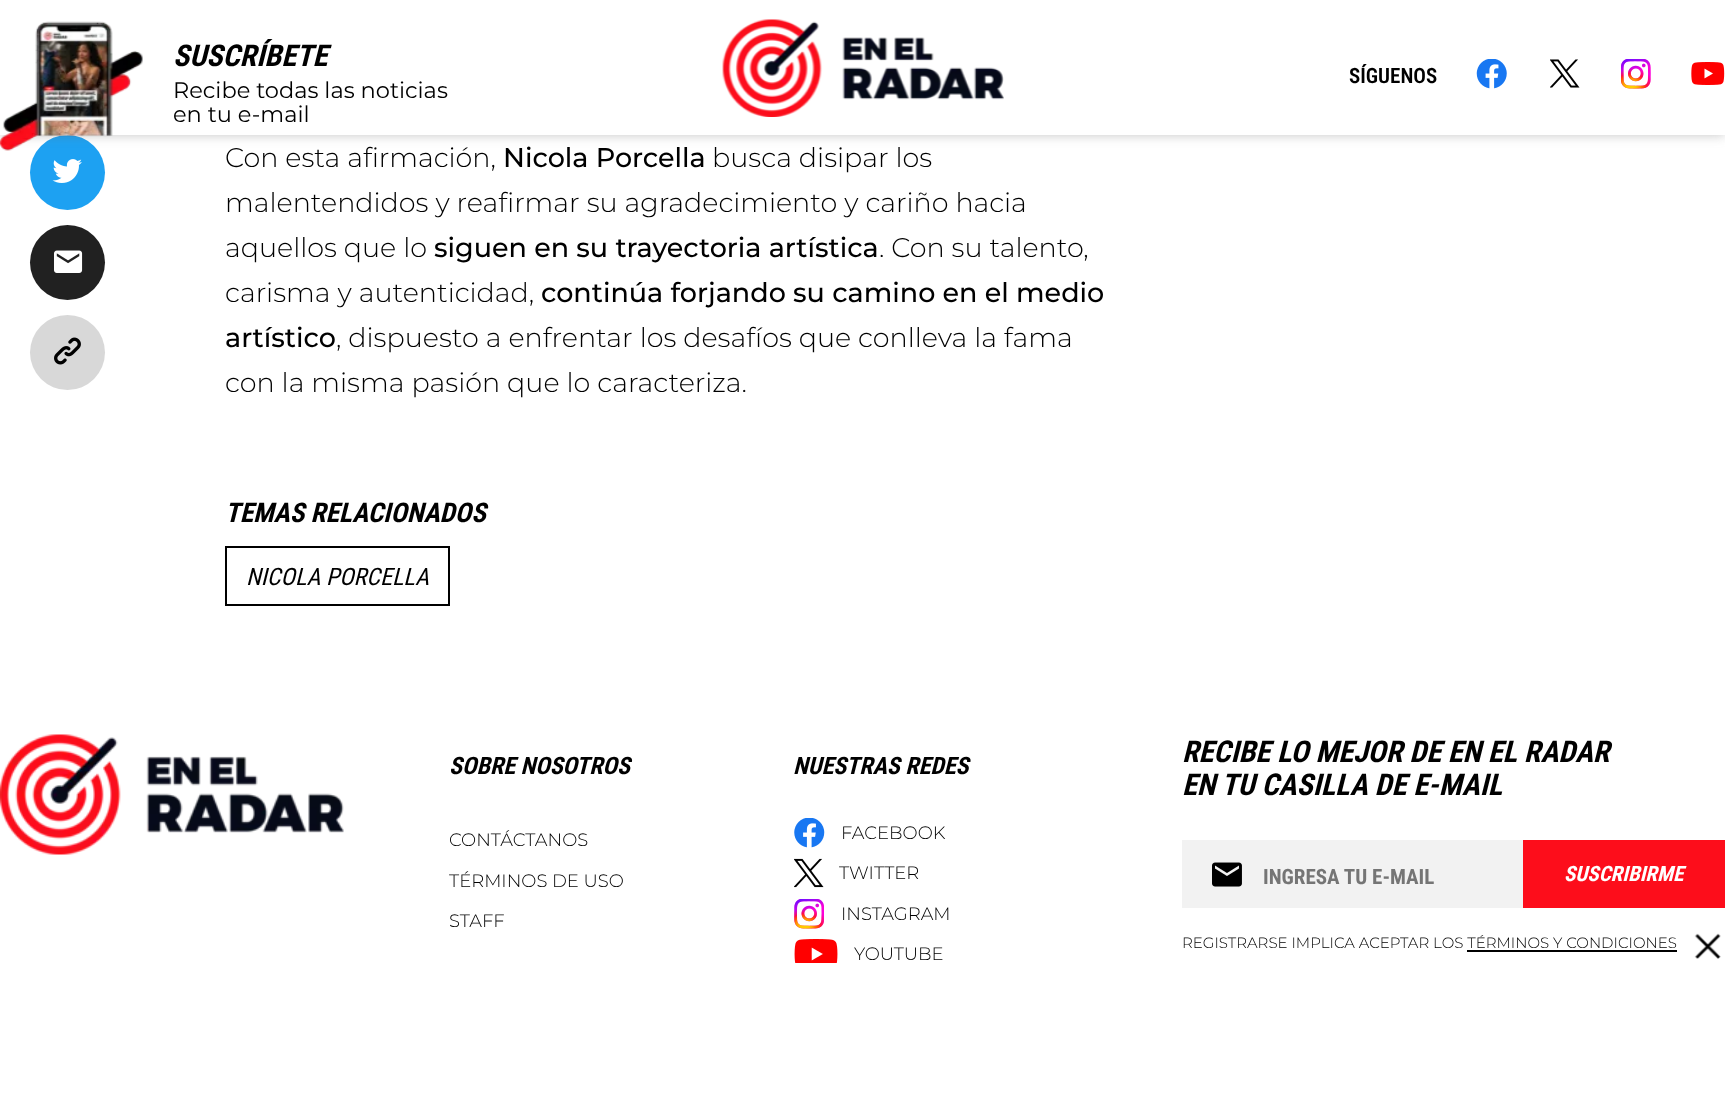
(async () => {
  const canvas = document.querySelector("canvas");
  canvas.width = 1725;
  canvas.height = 1100;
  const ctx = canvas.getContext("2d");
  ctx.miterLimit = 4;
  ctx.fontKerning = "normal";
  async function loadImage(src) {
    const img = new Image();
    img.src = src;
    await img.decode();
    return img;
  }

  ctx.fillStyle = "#ffffff";
  ctx.fillRect(0, 0, 1725, 1100);
  ctx.fillStyle = "#1da1f2";
  ctx.beginPath();
  ctx.arc(67.5, 172.5, 37.5, 0, Math.PI * 2);
  ctx.fill();
  ctx.fillStyle = "rgba(113, 113, 113, 0.4)";
  ctx.filter = "blur(6px)";
  ctx.beginPath();
  ctx.rect(0, 0, 1725, 135);
  ctx.fill();
  ctx.filter = "none";
  ctx.fillStyle = "#ffffff";
  ctx.fillRect(0, 0, 1725, 135);
  ctx.drawImage(await loadImage("img/1.png"), 0, 21, 143, 130);
  ctx.drawImage(await loadImage("img/2.png"), 722, 19, 282, 98);
  ctx.drawImage(await loadImage("img/3.png"), 1476, 59, 31, 30);
  ctx.drawImage(await loadImage("img/4.png"), 1550, 59, 30, 29);
  ctx.drawImage(await loadImage("img/5.png"), 1621, 59, 30, 30);
  ctx.drawImage(await loadImage("img/6.png"), 1691, 62, 34, 23);
  ctx.drawImage(await loadImage("img/7.png"), 52, 159, 30, 24);
  ctx.fillStyle = "#212121";
  ctx.beginPath();
  ctx.arc(67.5, 262.5, 37.5, 0, Math.PI * 2);
  ctx.fill();
  ctx.drawImage(await loadImage("img/8.png"), 54, 250, 29, 23);
  ctx.fillStyle = "#d8d8d8";
  ctx.beginPath();
  ctx.arc(67.5, 352.5, 37.5, 0, Math.PI * 2);
  ctx.fill();
  ctx.drawImage(await loadImage("img/9.png"), 54, 337, 27, 28);
  ctx.strokeStyle = "#000000";
  ctx.lineWidth = 2;
  ctx.strokeRect(226, 547, 223, 58);
  ctx.drawImage(await loadImage("img/10.png"), 0, 734, 344, 121);
  ctx.drawImage(await loadImage("img/11.png"), 794, 818, 31, 30);
  ctx.drawImage(await loadImage("img/12.png"), 794, 858, 30, 30);
  ctx.drawImage(await loadImage("img/13.png"), 794, 899, 30, 30);
  ctx.drawImage(await loadImage("img/14.png"), 794, 939, 44, 24);
  ctx.fillStyle = "#f2f2f2";
  ctx.fillRect(1182, 840, 341, 68);
  ctx.drawImage(await loadImage("img/15.png"), 1212, 862, 30, 25);
  ctx.fillStyle = "#fd0d1b";
  ctx.fillRect(1523, 840, 202, 68);
  ctx.fillStyle = "#000000";
  ctx.fillRect(1467, 950, 210, 2);
  ctx.drawImage(await loadImage("img/16.png"), 1694, 933, 27, 26);
  ctx.font = "italic bold 30px Roboto Condensed";
  ctx.fillText("SUSCRÍBETE", 173, 66);
  ctx.font = "22.5px Montserrat";
  ctx.fillText("Recibe todas las noticias", 173, 98);
  ctx.fillText("en tu e-mail", 173, 122);
  ctx.font = "600 21px Roboto Condensed";
  ctx.fillText("SÍGUENOS", 1349, 83);
  ctx.font = "300 27px Montserrat";
  ctx.fillText("Con esta afirmación,", 225, 167);
  ctx.font = "500 27px Montserrat";
  ctx.fillText("Nicola Porcella", 503, 167);
  ctx.font = "300 27px Montserrat";
  for (const [text, x, y] of [
    ["busca disipar los", 712, 167],
    ["malentendidos y reafirmar su agradecimiento y cariño hacia", 225, 212],
    ["aquellos que lo", 225, 257],
  ]) {
    ctx.fillText(text, x, y);
  }
  ctx.font = "500 27px Montserrat";
  ctx.fillText("siguen en su trayectoria artística", 434, 257);
  ctx.font = "300 27px Montserrat";
  ctx.fillText(". Con su talento,", 879, 257);
  ctx.fillText("carisma y autenticidad,", 225, 302);
  ctx.font = "500 27px Montserrat";
  ctx.fillText("continúa forjando su camino en el medio", 541, 302);
  ctx.fillText("artístico", 225, 347);
  ctx.font = "300 27px Montserrat";
  ctx.fillText(", dispuesto a enfrentar los desafíos que conlleva la fama", 336, 347);
  ctx.fillText("con la misma pasión que lo caracteriza.", 225, 392);
  ctx.font = "italic bold 27px Roboto Condensed";
  ctx.fillText("TEMAS RELACIONADOS", 225, 522);
  ctx.font = "italic 24px Roboto Condensed";
  ctx.fillText("NICOLA PORCELLA", 246, 585);
  ctx.font = "italic bold 24px Roboto Condensed";
  ctx.fillText("SOBRE NOSOTROS", 449, 774);
  ctx.font = "300 18px Montserrat";
  for (const [text, x, y] of [
    ["CONTÁCTANOS", 449, 846],
    ["TÉRMINOS DE USO", 449, 887],
    ["STAFF", 449, 927],
  ]) {
    ctx.fillText(text, x, y);
  }
  ctx.font = "italic bold 24px Roboto Condensed";
  ctx.fillText("NUESTRAS REDES", 793, 774);
  ctx.font = "300 18px Montserrat";
  for (const [text, x, y] of [
    ["FACEBOOK", 841, 839],
    ["TWITTER", 839, 879],
    ["INSTAGRAM", 841, 920],
    ["YOUTUBE", 854, 960],
  ]) {
    ctx.fillText(text, x, y);
  }
  ctx.font = "italic bold 30px Roboto Condensed";
  ctx.fillText("RECIBE LO MEJOR DE EN EL RADAR", 1182, 762);
  ctx.fillText("EN TU CASILLA DE E-MAIL", 1182, 795);
  ctx.font = "bold 21px Roboto Condensed";
  ctx.fillStyle = "#757575";
  ctx.fillText("INGRESA TU E-MAIL", 1263, 884);
  ctx.font = "italic bold 21px Roboto Condensed";
  ctx.fillStyle = "#ffffff";
  ctx.fillText("SUSCRIBIRME", 1564, 881);
  ctx.font = "300 15px Montserrat";
  ctx.fillStyle = "#000000";
  ctx.fillText("REGISTRARSE IMPLICA ACEPTAR LOS TÉRMINOS Y CONDICIONES", 1182, 948);
})();
